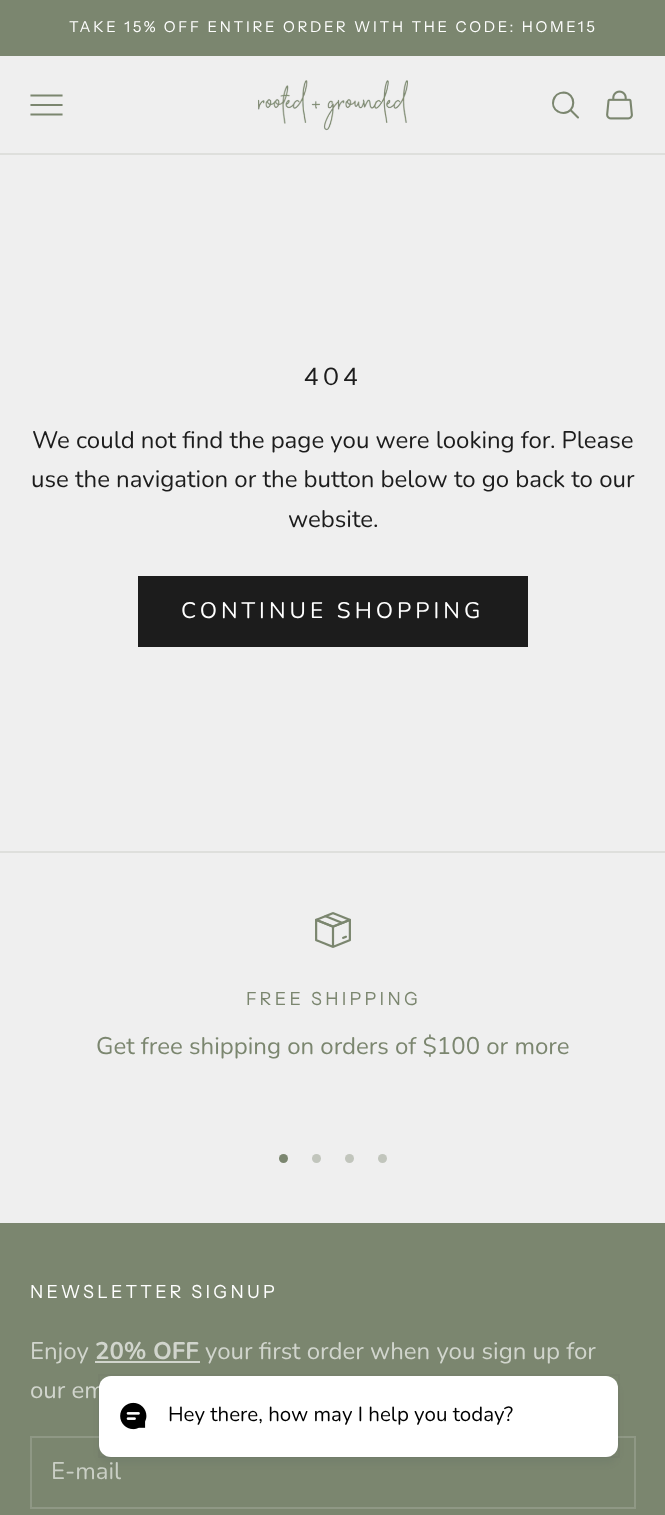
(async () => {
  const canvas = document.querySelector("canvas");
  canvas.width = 665;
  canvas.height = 1515;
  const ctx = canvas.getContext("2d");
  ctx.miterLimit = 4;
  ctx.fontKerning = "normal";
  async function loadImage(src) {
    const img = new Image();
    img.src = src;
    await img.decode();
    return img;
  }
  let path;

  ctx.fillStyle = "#efefef";
  ctx.fillRect(0, 0, 665, 1515);
  ctx.fillStyle = "#7b866f";
  ctx.fillRect(0, 0, 665, 56);
  ctx.fillStyle = "#dedfdc";
  ctx.fillRect(0, 153, 665, 2);
  path = new Path2D("M31.5 114.5H61.5M31.5 105H61.5M31.5 95.5H61.5");
  ctx.strokeStyle = "#7b866f";
  ctx.lineWidth = 2.1;
  ctx.lineCap = "square";
  ctx.stroke(path);
  ctx.drawImage(await loadImage("img/1.png"), 258, 80, 150, 51);
  path = new Path2D("M563.5 92.5C553 92.5 549 106.5 558 111.5C559.5 112.5 561.5 113 563.5 113C576.5 112.5 576.5 93 563.5 92.5Z");
  ctx.lineCap = "butt";
  ctx.stroke(path);
  path = new Path2D("M571 110.5L578 117.5");
  ctx.lineCap = "round";
  ctx.stroke(path);
  ctx.drawImage(await loadImage("img/2.png"), 606, 90, 27, 30);
  ctx.fillStyle = "#1c1c1c";
  ctx.beginPath();
  ctx.rect(139, 577, 388, 69);
  ctx.fill();
  ctx.strokeStyle = "#1c1c1c";
  ctx.lineWidth = 2;
  ctx.stroke();
  ctx.fillStyle = "#dedfdc";
  ctx.fillRect(0, 851, 665, 2);
  ctx.drawImage(await loadImage("img/3.png"), 315, 912, 36, 36);
  ctx.fillStyle = "#7b866f";
  ctx.beginPath();
  ctx.arc(283.5, 1158.5, 4.5, 0, Math.PI * 2);
  ctx.fill();
  ctx.fillStyle = "#c1c5bc";
  ctx.beginPath();
  ctx.arc(316.5, 1158.5, 4.5, 0, Math.PI * 2);
  ctx.fill();
  ctx.beginPath();
  ctx.arc(349.5, 1158.5, 4.5, 0, Math.PI * 2);
  ctx.fill();
  ctx.beginPath();
  ctx.arc(382.5, 1158.5, 4.5, 0, Math.PI * 2);
  ctx.fill();
  ctx.fillStyle = "#7b866f";
  ctx.fillRect(0, 1223, 665, 292);
  ctx.fillStyle = "#d1d5cd";
  ctx.fillRect(95, 1361, 105, 2);
  ctx.strokeStyle = "#8f9885";
  ctx.strokeRect(31, 1437, 604, 71);
  ctx.fillStyle = "rgba(55, 63, 71, 0.08)";
  ctx.filter = "blur(3px)";
  ctx.beginPath();
  ctx.roundRect(99, 1382, 519, 82, 12);
  ctx.fill();
  ctx.filter = "none";
  ctx.letterSpacing = "2.7px";
  ctx.font = "15px Instrument Sans";
  ctx.fillStyle = "#ffffff";
  ctx.fillText("TAKE 15% OFF ENTIRE ORDER WITH THE CODE: HOME15", 69, 32);
  ctx.letterSpacing = "4.5px";
  ctx.font = "24px Instrument Sans";
  ctx.fillStyle = "#1c1c1c";
  ctx.fillText("404", 304, 385);
  ctx.letterSpacing = "0px";
  ctx.font = "24px Nunito";
  for (const [text, x, y] of [
    ["We could not find the page you were looking for. Please", 32, 448],
    ["use the navigation or the button below to go back to our", 31, 487],
    ["website.", 288, 527],
  ]) {
    ctx.fillText(text, x, y);
  }
  ctx.letterSpacing = "4px";
  ctx.font = "22.5px Nunito";
  ctx.fillStyle = "#ffffff";
  ctx.fillText("CONTINUE SHOPPING", 181, 618);
  ctx.letterSpacing = "3.25px";
  ctx.font = "18px Instrument Sans";
  ctx.fillStyle = "#7b866f";
  ctx.fillText("FREE SHIPPING", 246, 1005);
  ctx.letterSpacing = "0px";
  ctx.font = "24px Nunito";
  ctx.fillText("Get free shipping on orders of $100 or more", 96, 1054);
  ctx.letterSpacing = "3.25px";
  ctx.font = "18px Instrument Sans";
  ctx.fillStyle = "#ffffff";
  ctx.fillText("NEWSLETTER SIGNUP", 30, 1298);
  ctx.letterSpacing = "0px";
  ctx.font = "24px Nunito";
  ctx.fillStyle = "#d1d5cd";
  ctx.fillText("Enjoy", 30, 1359);
  ctx.font = "bold 24px Nunito";
  ctx.fillText("20% OFF", 95, 1359);
  ctx.font = "24px Nunito";
  ctx.fillText("your first order when you sign up for", 205, 1359);
  ctx.fillText("our em", 30, 1398);
  ctx.fillStyle = "#cacfc5";
  ctx.fillText("E-mail", 51, 1479);
  ctx.strokeStyle = "rgba(55, 63, 71, 0.04)";
  ctx.strokeRect(99, 1375, 520, 82);
  ctx.fillStyle = "#ffffff";
  ctx.beginPath();
  ctx.roundRect(99, 1376, 519, 81, 12);
  ctx.fill();
  ctx.drawImage(await loadImage("img/4.png"), 120, 1402, 27, 28);
  ctx.font = "20.5px Nunito";
  ctx.fillStyle = "#000000";
  ctx.fillText("Hey there, how may I help you today?", 168, 1421);
})();
